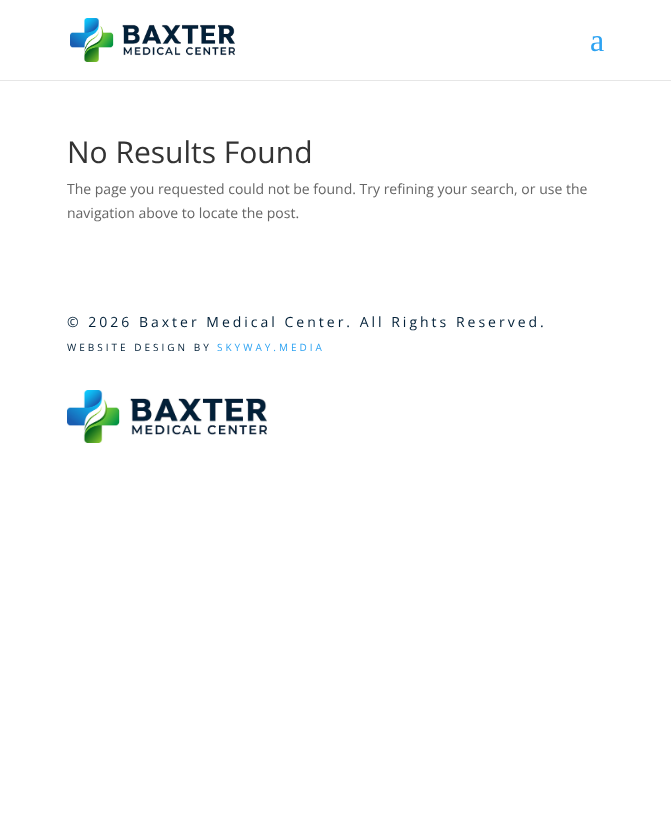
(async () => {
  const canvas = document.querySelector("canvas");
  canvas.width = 671;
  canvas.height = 828;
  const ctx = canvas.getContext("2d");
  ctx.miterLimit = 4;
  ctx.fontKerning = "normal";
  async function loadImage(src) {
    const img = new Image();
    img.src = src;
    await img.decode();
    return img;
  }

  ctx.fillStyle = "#ffffff";
  ctx.fillRect(0, 0, 671, 828);
  ctx.fillStyle = "#e6e6e6";
  ctx.fillRect(0, 80, 671, 1);
  ctx.drawImage(await loadImage("img/1.png"), 70, 18, 165, 44);
  ctx.drawImage(await loadImage("img/2.png"), 67, 390, 200, 53);
  ctx.font = "32px Liberation Serif";
  ctx.fillStyle = "#2ea3f2";
  ctx.fillText("a", 590, 51);
  ctx.font = "30px Open Sans";
  ctx.fillStyle = "#333333";
  ctx.fillText("No Results Found", 67, 163);
  ctx.font = "14px Open Sans";
  ctx.fillStyle = "#666666";
  ctx.fillText("The page you requested could not be found. Try refining your search, or use the", 67, 194);
  ctx.fillText("navigation above to locate the post.", 67, 218);
  ctx.letterSpacing = "3px";
  ctx.fillStyle = "#022038";
  ctx.fillText("© 2026 Baxter Medical Center. All Rights Reserved.", 67, 327);
  ctx.font = "10px Open Sans";
  ctx.fillText("WEBSITE DESIGN BY", 67, 351);
  ctx.fillStyle = "#2ea3f2";
  ctx.fillText("SKYWAY.MEDIA", 217, 351);
})();
